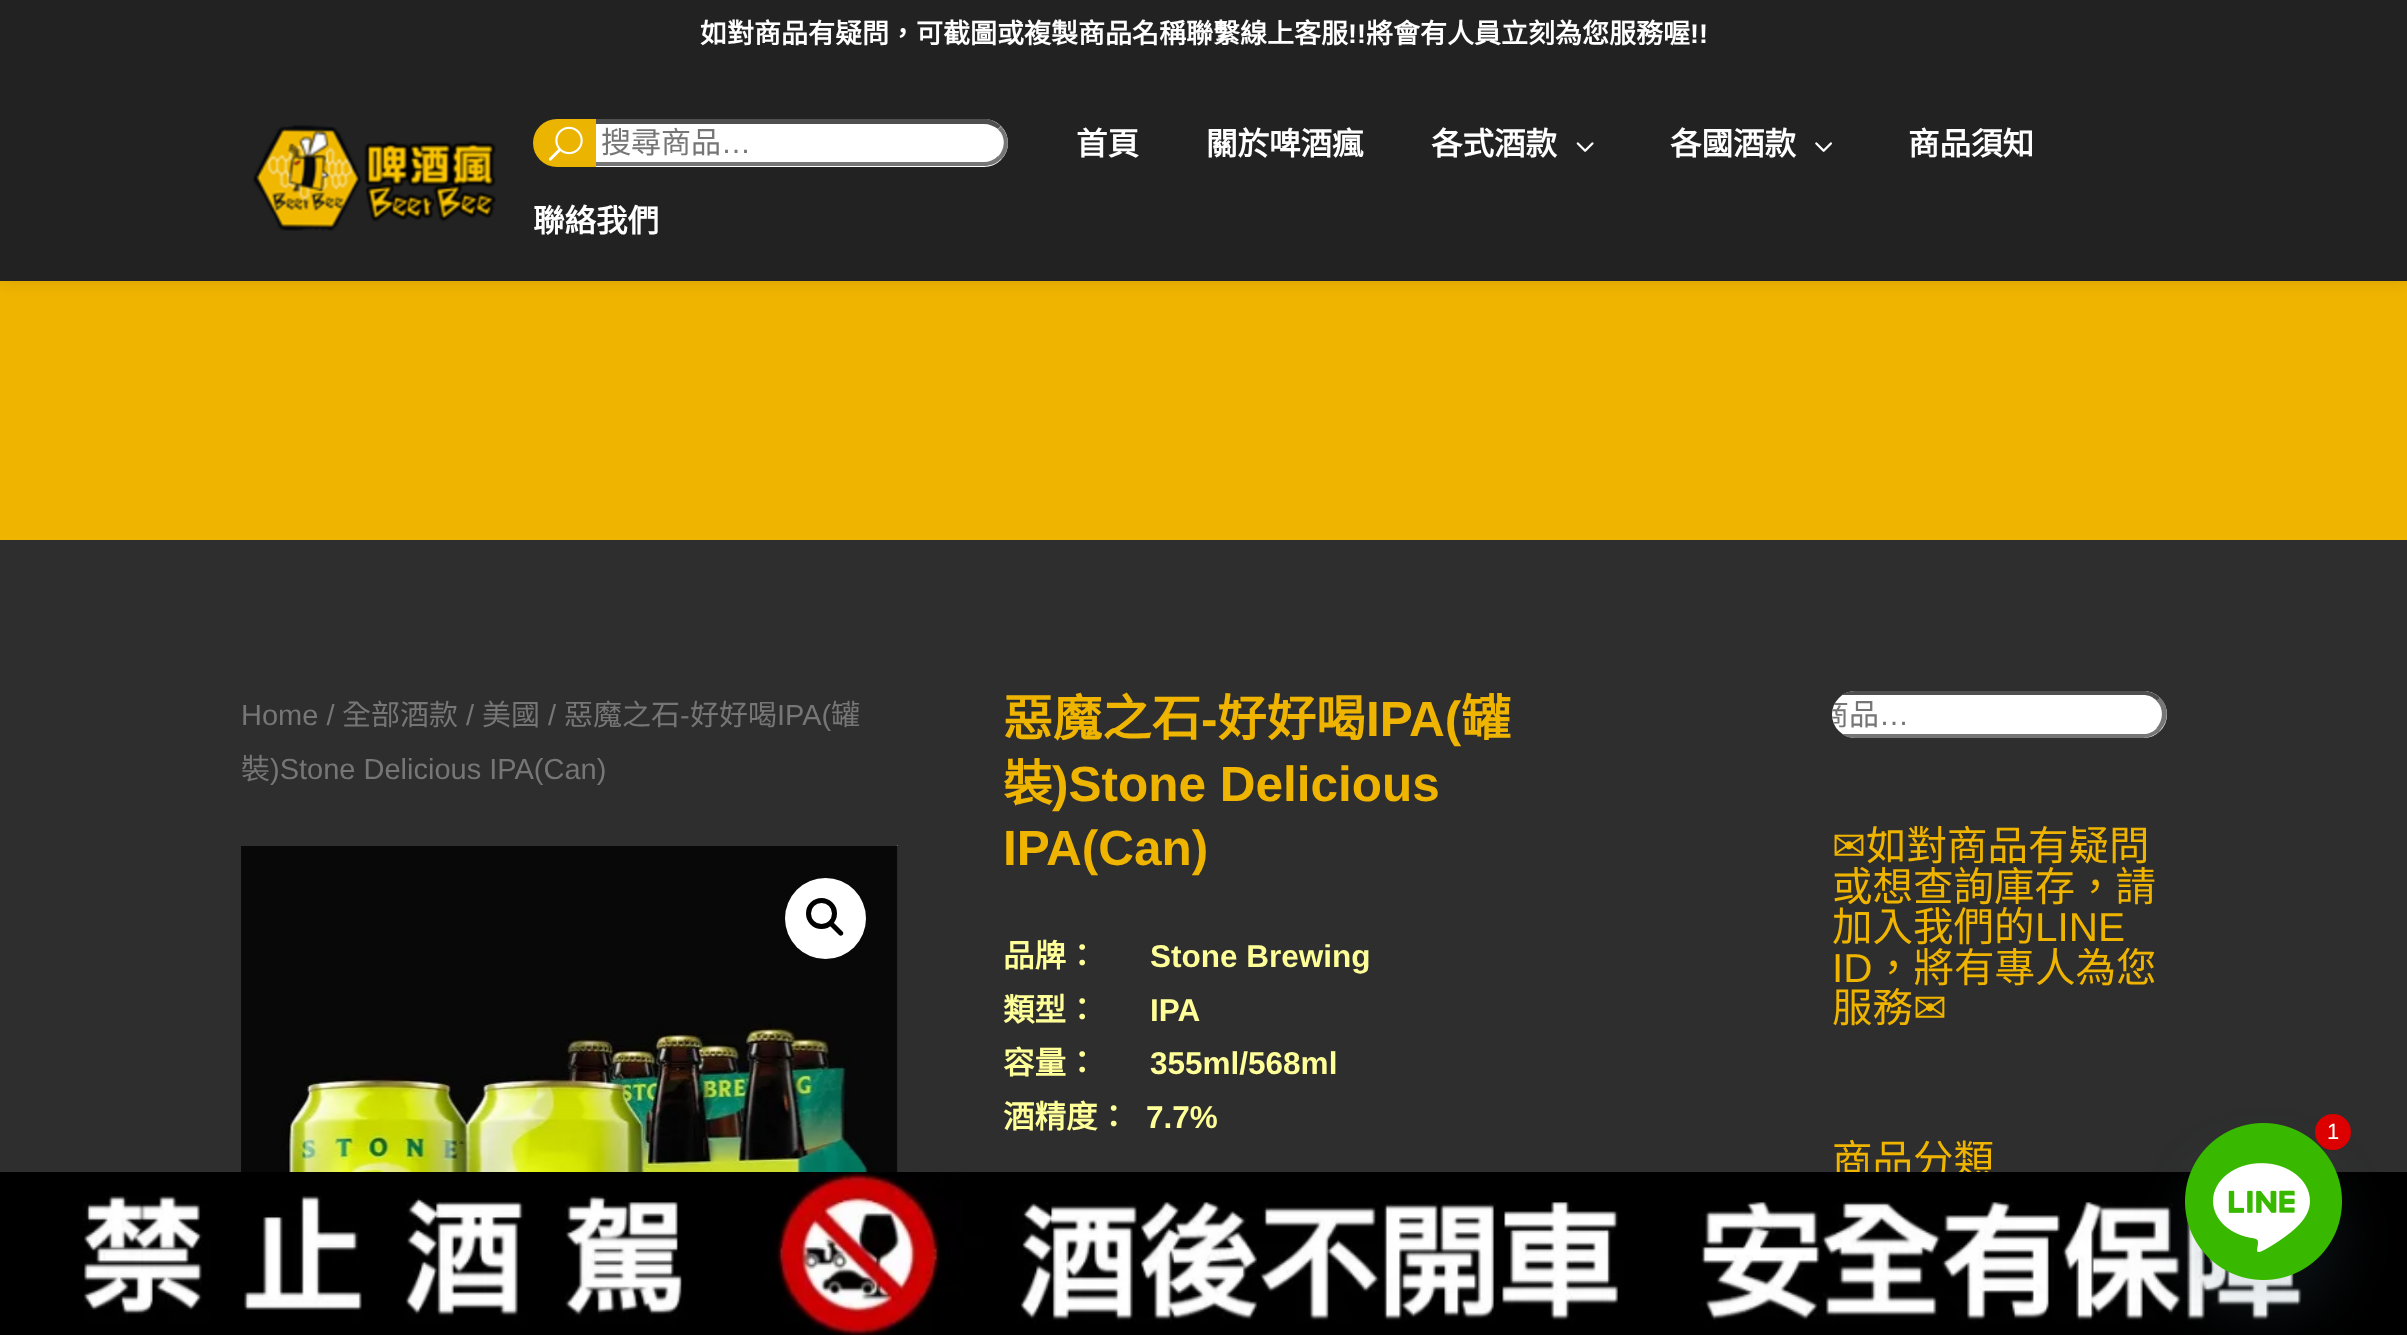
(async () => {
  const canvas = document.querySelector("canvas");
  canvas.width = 2407;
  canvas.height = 1335;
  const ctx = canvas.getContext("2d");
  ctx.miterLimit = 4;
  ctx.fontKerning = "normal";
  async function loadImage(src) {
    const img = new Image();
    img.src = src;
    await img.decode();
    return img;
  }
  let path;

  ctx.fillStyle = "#2e2e2e";
  ctx.fillRect(0, 0, 2407, 1335);
  ctx.fillStyle = "#efb400";
  ctx.fillRect(0, 281, 2407, 259);
  ctx.fillStyle = "rgba(0, 0, 0, 0.1)";
  ctx.filter = "blur(8px)";
  ctx.beginPath();
  ctx.rect(0, 74, 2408, 207);
  ctx.fill();
  ctx.filter = "none";
  ctx.fillStyle = "#222222";
  ctx.fillRect(0, 0, 2407, 281);
  ctx.drawImage(await loadImage("img/1.png"), 253, 125, 243, 106);
  ctx.fillStyle = "#eab400";
  ctx.beginPath();
  ctx.roundRect(533, 119, 63, 48, [24, 0, 0, 24]);
  ctx.fill();
  ctx.drawImage(await loadImage("img/2.png"), 548, 126, 35, 35);
  ctx.fillStyle = "#ffffff";
  ctx.beginPath();
  ctx.roundRect(596, 119, 412, 48, [0, 24, 24, 0]);
  ctx.fill();
  ctx.fillStyle = "#4f4f4f";
  path = new Path2D("M596 119V124H984C989 124 994 126 998 129L1001 126C997 123 993 120 987 119Z");
  ctx.fill(path);
  ctx.fillStyle = "#767676";
  path = new Path2D("M1001 126.5L998 129.5C1006 136.5 1005.5 149 998 156.5L1001 159.5C1010.5 150.5 1010 135.5 1001 126.5Z");
  ctx.fill(path);
  path = new Path2D("M1001 159L998 156C994 160 989 162 984 162H596V166H984C990 166 996 164 1001 159Z");
  ctx.fill(path);
  ctx.drawImage(await loadImage("img/3.png"), 1576, 142, 18, 10);
  ctx.drawImage(await loadImage("img/4.png"), 1815, 142, 17, 10);
  ctx.drawImage(await loadImage("img/5.png"), 897, 845, 1, 327);
  ctx.drawImage(await loadImage("img/6.png"), 241, 846, 657, 326);
  ctx.fillStyle = "#ffffff";
  ctx.beginPath();
  ctx.arc(825.5, 918.5, 40.5, 0, Math.PI * 2);
  ctx.fill();
  ctx.beginPath();
  ctx.arc(821.5, 913.5, 13, 0, Math.PI * 2);
  ctx.strokeStyle = "#000000";
  ctx.lineWidth = 5;
  ctx.stroke();
  ctx.fillStyle = "#000000";
  path = new Path2D("M829.5 922C830.5 921.5 832 921.5 833 922L842.5 931.5C843.5 932.5 843.5 934 842.5 935C841.5 936 840 936 839 935L829.5 925.5C829 924.5 829 923 829.5 922Z");
  ctx.fill(path);
  ctx.fillStyle = "#ffffff";
  ctx.beginPath();
  ctx.roundRect(1832, 691, 335, 47, 23.5);
  ctx.fill();
  ctx.fillStyle = "#4f4f4f";
  path = new Path2D("M1856 691H2143C2149 691 2155 693 2160 698L2157 701C2153 697 2149 695 2143 695H1842C1846 692 1851 691 1856 691Z");
  ctx.fill(path);
  ctx.fillStyle = "#767676";
  path = new Path2D("M2160 697.5C2169.5 706.5 2169 722 2159.5 731L2156.5 728C2163.5 720.5 2164 708 2156.5 701Z");
  ctx.fill(path);
  path = new Path2D("M1856 738H2143C2149 738 2155 735 2160 731L2157 728C2153 732 2149 734 2143 734H1842C1846 737 1851 738 1856 738Z");
  ctx.fill(path);
  ctx.font = "bold 27px Noto Sans CJK HK";
  ctx.fillStyle = "#ffffff";
  ctx.fillText("如對商品有疑問，可截圖或複製商品名稱聯繫線上客服", 700, 43);
  ctx.font = "bold 27px Liberation Sans";
  ctx.fillText("!!", 1348, 43);
  ctx.font = "bold 27px Noto Sans CJK HK";
  ctx.fillText("將會有人員立刻為您服務喔", 1366, 43);
  ctx.font = "bold 27px Liberation Sans";
  ctx.fillText("!!", 1690, 43);
  ctx.font = "30px Noto Sans CJK HK";
  ctx.fillStyle = "#767676";
  ctx.fillText("搜尋商品", 601, 153);
  ctx.font = "30px Liberation Sans";
  ctx.fillText("…", 721, 153);
  ctx.font = "bold 31.5px Noto Sans CJK HK";
  ctx.fillStyle = "#ffffff";
  for (const [text, x, y] of [
    ["首頁", 1076, 155],
    ["關於啤酒瘋", 1206, 155],
    ["各式酒款", 1431, 155],
    ["各國酒款", 1670, 155],
    ["商品須知", 1908, 155],
    ["聯絡我們", 533, 232],
  ]) {
    ctx.fillText(text, x, y);
  }
  ctx.font = "29px Liberation Sans";
  ctx.fillStyle = "#767676";
  ctx.fillText("Home /", 241, 725);
  ctx.font = "29px Noto Sans CJK HK";
  ctx.fillText("全部酒款", 342, 725);
  ctx.font = "29px Liberation Sans";
  ctx.fillText("/", 466, 725);
  ctx.font = "29px Noto Sans CJK HK";
  ctx.fillText("美國", 482, 725);
  ctx.font = "29px Liberation Sans";
  ctx.fillText("/", 548, 725);
  ctx.font = "29px Noto Sans CJK HK";
  ctx.fillText("惡魔之石", 564, 725);
  ctx.font = "29px Liberation Sans";
  ctx.fillText("-", 680, 725);
  ctx.font = "29px Noto Sans CJK HK";
  ctx.fillText("好好喝", 690, 725);
  ctx.font = "29px Liberation Sans";
  ctx.fillText("IPA(", 777, 725);
  ctx.font = "29px Noto Sans CJK HK";
  ctx.fillText("罐", 831, 725);
  ctx.fillText("裝", 241, 779);
  ctx.font = "29px Liberation Sans";
  ctx.fillText(")Stone Delicious IPA(Can)", 270, 779);
  ctx.font = "bold 49.5px Noto Sans CJK HK";
  ctx.fillStyle = "#efb400";
  ctx.fillText("惡魔之石", 1003, 736);
  ctx.font = "bold 49.5px Liberation Sans";
  ctx.fillText("-", 1201, 736);
  ctx.font = "bold 49.5px Noto Sans CJK HK";
  ctx.fillText("好好喝", 1217, 736);
  ctx.font = "bold 49.5px Liberation Sans";
  ctx.fillText("IPA(", 1366, 736);
  ctx.font = "bold 49.5px Noto Sans CJK HK";
  ctx.fillText("罐", 1461, 736);
  ctx.fillText("裝", 1003, 801);
  ctx.font = "bold 49.5px Liberation Sans";
  ctx.fillText(")Stone Delicious", 1052, 801);
  ctx.fillText("IPA(Can)", 1003, 865);
  ctx.font = "bold 31.5px Noto Sans CJK HK";
  ctx.fillStyle = "#ffff99";
  ctx.fillText("品牌：", 1003, 967);
  ctx.font = "bold 31.5px Liberation Sans";
  ctx.fillText("Stone Brewing", 1150, 967);
  ctx.font = "bold 31.5px Noto Sans CJK HK";
  ctx.fillText("類型：", 1003, 1021);
  ctx.font = "bold 31.5px Liberation Sans";
  ctx.fillText("IPA", 1150, 1021);
  ctx.font = "bold 31.5px Noto Sans CJK HK";
  ctx.fillText("容量：", 1003, 1074);
  ctx.font = "bold 31.5px Liberation Sans";
  ctx.fillText("355ml/568ml", 1150, 1074);
  ctx.font = "bold 31.5px Noto Sans CJK HK";
  ctx.fillText("酒精度：", 1003, 1128);
  ctx.font = "bold 31.5px Liberation Sans";
  ctx.fillText("7.7%", 1146, 1128);
  ctx.save();
  ctx.beginPath();
  ctx.roundRect(1832, 691, 335, 47, 23.5);
  ctx.clip();
  ctx.font = "30px Noto Sans CJK HK";
  ctx.fillStyle = "#767676";
  ctx.fillText("商品", 1819, 725);
  ctx.restore();
  ctx.font = "30px Liberation Sans";
  ctx.fillStyle = "#767676";
  ctx.fillText("…", 1879, 725);
  ctx.font = "40.5px DejaVu Sans";
  ctx.fillStyle = "#efb400";
  ctx.fillText("✉", 1832, 860);
  ctx.font = "40.5px Noto Sans CJK HK";
  for (const [text, x, y] of [
    ["如對商品有疑問", 1866, 860],
    ["或想查詢庫存，請", 1832, 901],
    ["加入我們的", 1832, 941],
  ]) {
    ctx.fillText(text, x, y);
  }
  ctx.font = "40.5px Liberation Sans";
  ctx.fillText("LINE", 2035, 941);
  ctx.fillText("ID", 1832, 982);
  ctx.font = "40.5px Noto Sans CJK HK";
  ctx.fillText("，將有專人為您", 1873, 982);
  ctx.fillText("服務", 1832, 1022);
  ctx.font = "40.5px DejaVu Sans";
  ctx.fillText("✉", 1913, 1022);
  ctx.font = "40.5px Noto Sans CJK HK";
  ctx.fillText("商品分類", 1832, 1174);
  ctx.drawImage(await loadImage("img/7.png"), 0, 1172, 2407, 163);
  ctx.fillStyle = "rgba(73, 104, 126, 0.16)";
  ctx.filter = "blur(27px)";
  ctx.beginPath();
  ctx.roundRect(2185, 1159, 157, 157, 78.5);
  ctx.fill();
  ctx.filter = "none";
  ctx.drawImage(await loadImage("img/8.png"), 2185, 1123, 157, 157);
  ctx.fillStyle = "#dd0000";
  ctx.beginPath();
  ctx.arc(2333, 1132, 18, 0, Math.PI * 2);
  ctx.fill();
  ctx.font = "22px Liberation Sans";
  ctx.fillStyle = "#ffffff";
  ctx.fillText("1", 2327, 1139);
})();
